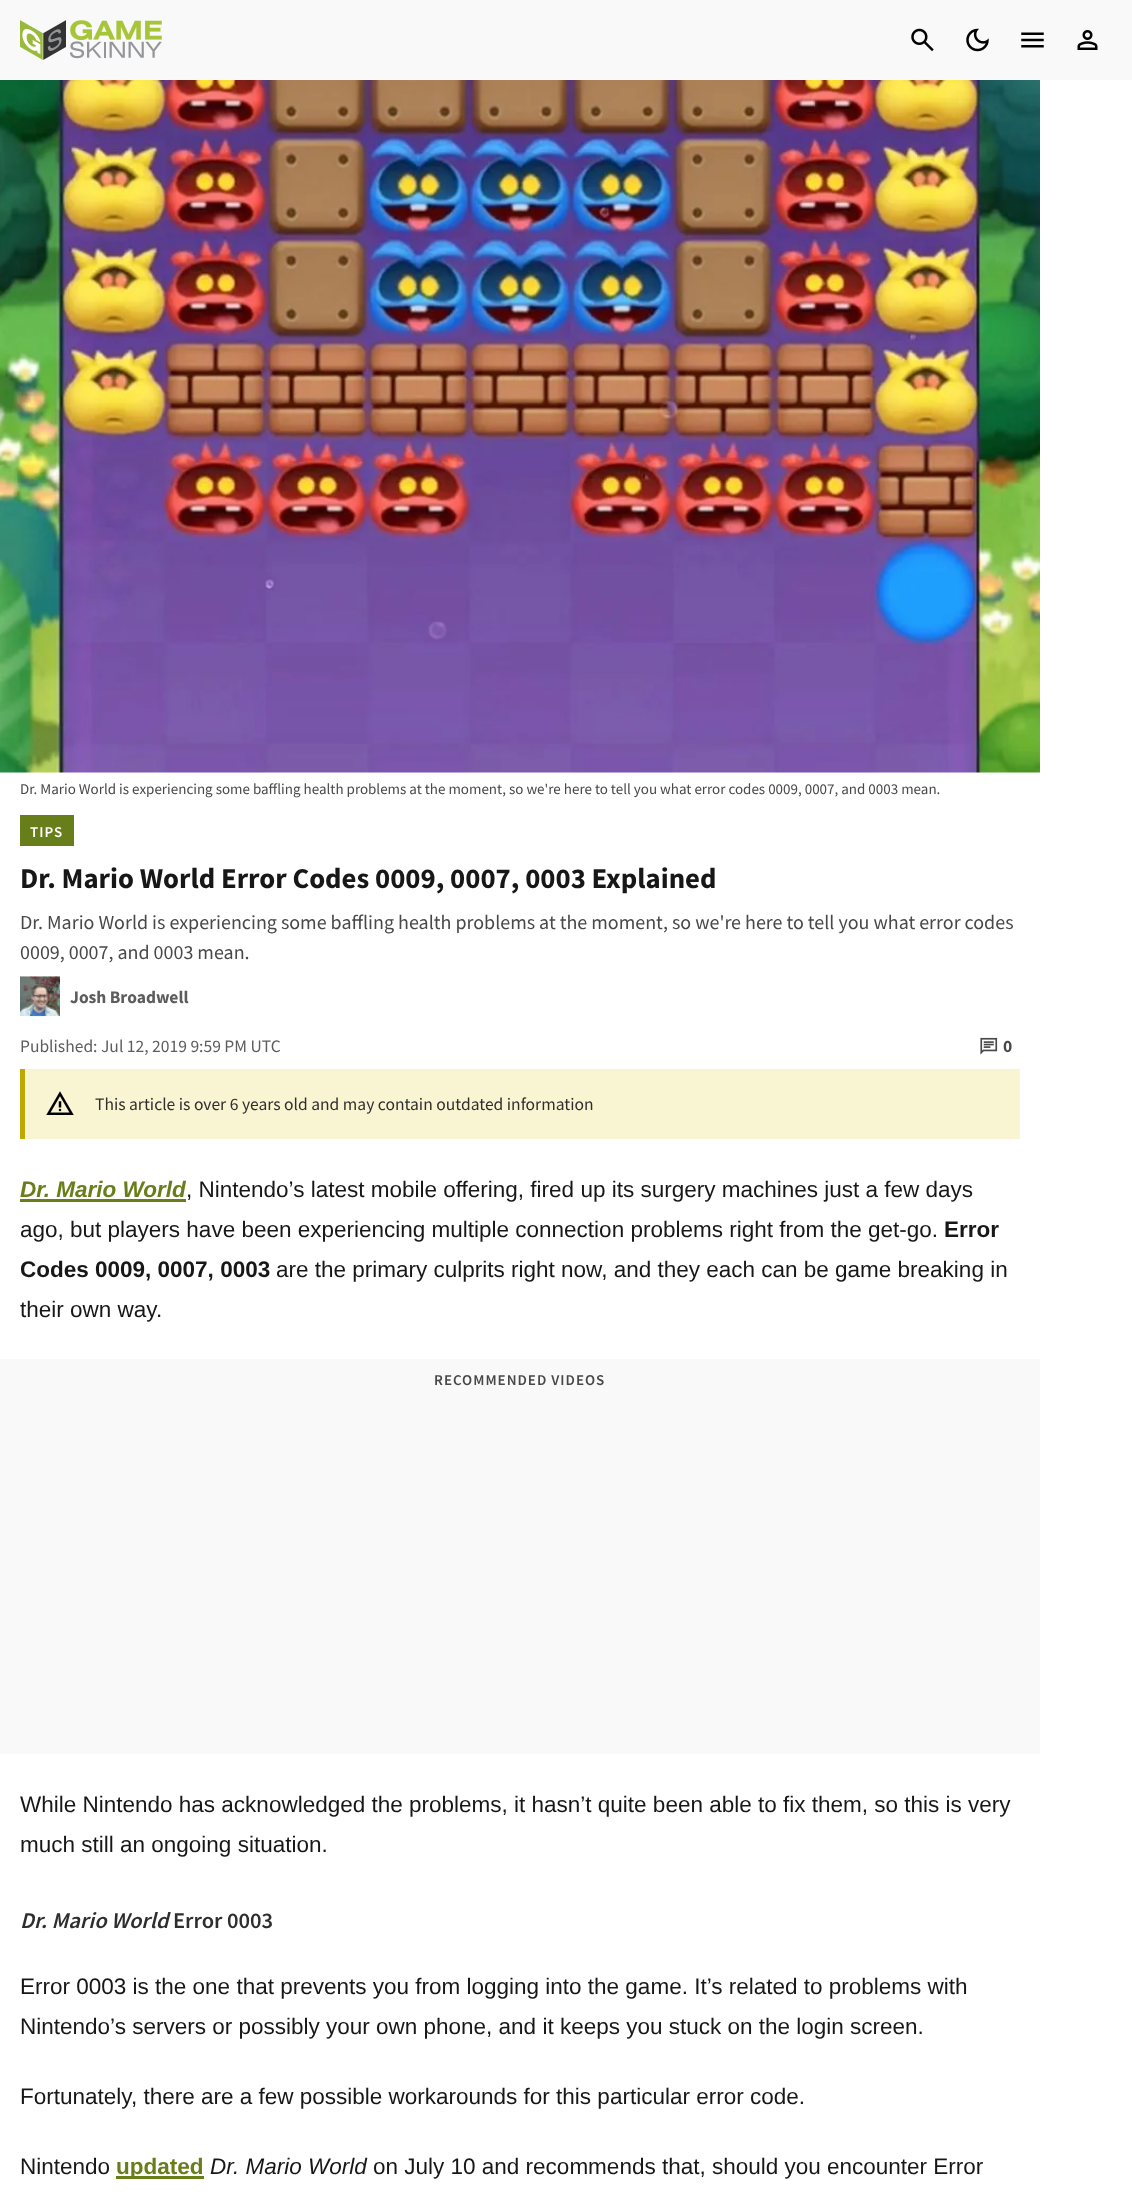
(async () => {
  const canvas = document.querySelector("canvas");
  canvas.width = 1132;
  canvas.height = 2207;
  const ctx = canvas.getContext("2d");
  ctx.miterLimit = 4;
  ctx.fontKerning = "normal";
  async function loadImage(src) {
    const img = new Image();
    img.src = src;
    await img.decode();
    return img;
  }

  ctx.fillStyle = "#ffffff";
  ctx.fillRect(0, 0, 1132, 2207);
  ctx.fillStyle = "#f9f9f9";
  ctx.fillRect(0, 0, 1132, 80);
  ctx.drawImage(await loadImage("img/1.png"), 20, 20, 142, 40);
  ctx.drawImage(await loadImage("img/2.png"), 911, 28, 23, 24);
  ctx.drawImage(await loadImage("img/3.png"), 966, 28, 23, 24);
  ctx.drawImage(await loadImage("img/4.png"), 1021, 32, 23, 16);
  ctx.drawImage(await loadImage("img/5.png"), 1077, 30, 21, 20);
  ctx.drawImage(await loadImage("img/6.png"), 0, 80, 1040, 693);
  ctx.fillStyle = "#687e1a";
  ctx.fillRect(20, 815, 54, 31);
  ctx.drawImage(await loadImage("img/7.png"), 20, 976, 40, 41);
  ctx.drawImage(await loadImage("img/8.png"), 980, 1037, 18, 18);
  ctx.fillStyle = "#f9f4d2";
  ctx.fillRect(25, 1069, 995, 70);
  ctx.fillStyle = "#bda805";
  ctx.fillRect(20, 1069, 5, 70);
  ctx.drawImage(await loadImage("img/9.png"), 46, 1091, 28, 24);
  for (const [x, y, w, h, color] of [
    [20, 1199, 166, 3, "#687e1a"],
    [0, 1359, 1040, 395, "#f9f9f9"],
    [116, 2176, 88, 3, "#687e1a"],
  ]) {
    ctx.fillStyle = color;
    ctx.fillRect(x, y, w, h);
  }
  ctx.font = "15px Source Sans Pro";
  ctx.fillStyle = "#494848";
  ctx.fillText("Dr. Mario World is experiencing some baffling health problems at the moment, so we're here to tell you what error codes 0009, 0007, and 0003 mean.", 20, 794);
  ctx.letterSpacing = "1px";
  ctx.font = "600 15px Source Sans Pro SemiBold";
  ctx.fillStyle = "#fefefe";
  ctx.fillText("TIPS", 30, 837);
  ctx.letterSpacing = "0px";
  ctx.font = "bold 28.75px Source Sans Pro";
  ctx.fillStyle = "#171717";
  ctx.fillText("Dr. Mario World Error Codes 0009, 0007, 0003 Explained", 20, 888);
  ctx.font = "20px Source Sans Pro";
  ctx.fillStyle = "#494848";
  ctx.fillText("Dr. Mario World is experiencing some baffling health problems at the moment, so we're here to tell you what error codes", 20, 929);
  ctx.fillText("0009, 0007, and 0003 mean.", 20, 959);
  ctx.font = "bold 17.5px Source Sans Pro";
  ctx.fillStyle = "#5d5d5d";
  ctx.fillText("Josh Broadwell", 70, 1003);
  ctx.font = "17.5px Source Sans Pro";
  ctx.fillText("Published: Jul 12, 2019 9:59 PM UTC", 20, 1052);
  ctx.font = "bold 17.5px Source Sans Pro";
  ctx.fillStyle = "#494848";
  ctx.fillText("0", 1003, 1052);
  ctx.font = "17.5px Source Sans Pro";
  ctx.fillStyle = "#2e2e2e";
  ctx.fillText("This article is over 6 years old and may contain outdated information", 95, 1110);
  ctx.font = "italic bold 22.5px Liberation Sans";
  ctx.fillStyle = "#687e1a";
  ctx.fillText("Dr. Mario World", 20, 1197);
  ctx.font = "22.5px Liberation Sans";
  ctx.fillStyle = "#171717";
  ctx.fillText(", Nintendo’s latest mobile offering, fired up its surgery machines just a few days", 186, 1197);
  ctx.fillText("ago, but players have been experiencing multiple connection problems right from the get-go.", 20, 1237);
  ctx.font = "bold 22.5px Liberation Sans";
  ctx.fillText("Error", 944, 1237);
  ctx.fillText("Codes 0009, 0007, 0003", 20, 1277);
  ctx.font = "22.5px Liberation Sans";
  ctx.fillText("are the primary culprits right now, and they each can be game breaking in", 276, 1277);
  ctx.fillText("their own way.", 20, 1317);
  ctx.letterSpacing = "1px";
  ctx.font = "600 15px Source Sans Pro SemiBold";
  ctx.fillStyle = "#494848";
  ctx.fillText("RECOMMENDED VIDEOS", 434, 1385);
  ctx.letterSpacing = "0px";
  ctx.font = "22.5px Liberation Sans";
  ctx.fillStyle = "#171717";
  ctx.fillText("While Nintendo has acknowledged the problems, it hasn’t quite been able to fix them, so this is very", 20, 1812);
  ctx.fillText("much still an ongoing situation.", 20, 1852);
  ctx.font = "italic 600 22.5px Source Sans Pro SemiBold";
  ctx.fillStyle = "#2e2e2e";
  ctx.fillText("Dr. Mario World", 20, 1928);
  ctx.font = "600 22.5px Source Sans Pro SemiBold";
  ctx.fillText("Error 0003", 173, 1928);
  ctx.font = "22.5px Liberation Sans";
  ctx.fillStyle = "#171717";
  for (const [text, x, y] of [
    ["Error 0003 is the one that prevents you from logging into the game. It’s related to problems with", 20, 1994],
    ["Nintendo’s servers or possibly your own phone, and it keeps you stuck on the login screen.", 20, 2034],
    ["Fortunately, there are a few possible workarounds for this particular error code.", 20, 2104],
    ["Nintendo", 20, 2174],
  ]) {
    ctx.fillText(text, x, y);
  }
  ctx.font = "bold 22.5px Liberation Sans";
  ctx.fillStyle = "#687e1a";
  ctx.fillText("updated", 116, 2174);
  ctx.font = "italic 22.5px Liberation Sans";
  ctx.fillStyle = "#171717";
  ctx.fillText("Dr. Mario World", 210, 2174);
  ctx.font = "22.5px Liberation Sans";
  ctx.fillText("on July 10 and recommends that, should you encounter Error", 373, 2174);
})();
